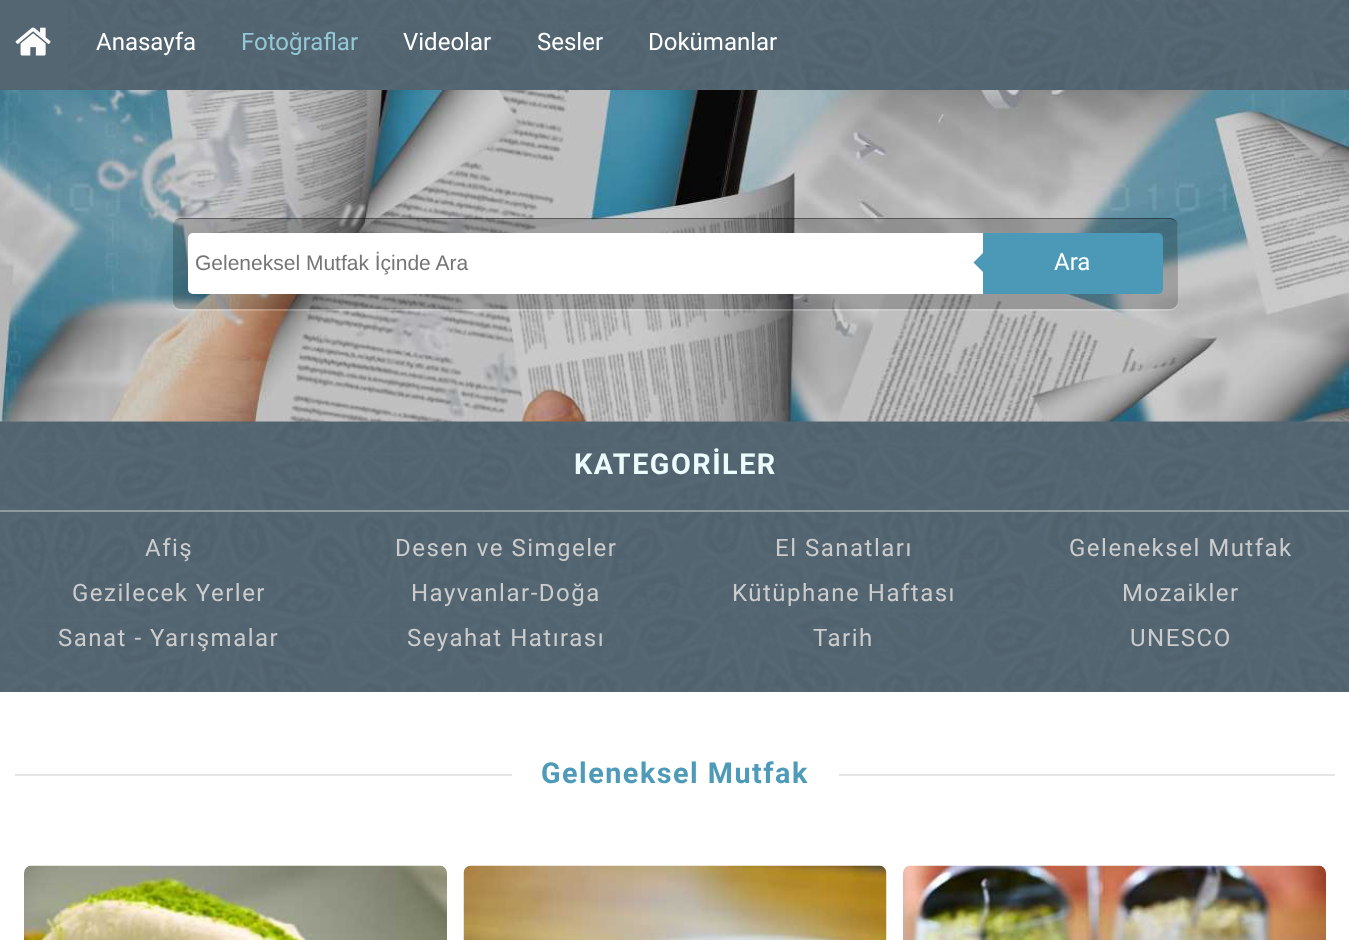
(async () => {
  const canvas = document.querySelector("canvas");
  canvas.width = 1349;
  canvas.height = 940;
  const ctx = canvas.getContext("2d");
  ctx.miterLimit = 4;
  ctx.fontKerning = "normal";
  async function loadImage(src) {
    const img = new Image();
    img.src = src;
    await img.decode();
    return img;
  }
  let path;

  ctx.fillStyle = "#ffffff";
  ctx.fillRect(0, 0, 1349, 940);
  ctx.drawImage(await loadImage("img/1.png"), 0, 90, 1349, 332);
  ctx.fillStyle = "#546672";
  ctx.fillRect(0, 0, 68, 90);
  ctx.drawImage(await loadImage("img/2.png"), 68, 0, 1281, 90);
  ctx.drawImage(await loadImage("img/3.png"), 15, 27, 36, 29);
  ctx.fillStyle = "rgba(255, 255, 255, 0.2)";
  path = new Path2D("M173 305C174 308 177 311 181 311H1170C1174 311 1178 307 1178 303V227L1177 224L1178 302C1178 306 1174 309 1170 309H180C177 309 174 307 173 305Z");
  ctx.fill(path);
  ctx.fillStyle = "rgba(0, 0, 0, 0.2)";
  ctx.beginPath();
  ctx.roundRect(173, 218, 1005, 91, 8);
  ctx.fill();
  ctx.fillStyle = "rgba(0, 0, 0, 0.4)";
  path = new Path2D("M180 219H1170C1174 219 1178 222 1178 226C1178 222 1174 218 1170 218H181C179 218 177 219 175 220C177 220 178 219 180 219Z");
  ctx.fill(path);
  ctx.fillStyle = "#ffffff";
  ctx.beginPath();
  ctx.roundRect(188, 233, 795, 61, [5, 0, 0, 5]);
  ctx.fill();
  ctx.fillStyle = "#4b98b7";
  ctx.beginPath();
  ctx.roundRect(983, 233, 180, 61, [0, 5, 5, 0]);
  ctx.fill();
  path = new Path2D("M985.5 250.5V274.5L973.5 262.5Z");
  ctx.fill(path);
  ctx.fillStyle = "#546672";
  ctx.fillRect(0, 691, 1349, 1);
  ctx.drawImage(await loadImage("img/4.png"), 0, 421, 1349, 270);
  for (const [x, y, w, h, color] of [
    [0, 510, 1349, 2, "#8d9c9c"],
    [15, 774, 1320, 2, "#e5e5e5"],
    [512, 774, 327, 2, "#ffffff"],
  ]) {
    ctx.fillStyle = color;
    ctx.fillRect(x, y, w, h);
  }
  ctx.drawImage(await loadImage("img/5.png"), 24, 865, 423, 75);
  ctx.drawImage(await loadImage("img/6.png"), 463, 865, 424, 75);
  ctx.drawImage(await loadImage("img/7.png"), 903, 865, 423, 75);
  ctx.font = "24px Roboto";
  ctx.fillText("Anasayfa", 96, 50);
  ctx.fillStyle = "#95c8d6";
  ctx.fillText("Fotoğraflar", 241, 50);
  ctx.fillStyle = "#ffffff";
  for (const [text, x, y] of [
    ["Videolar", 403, 50],
    ["Sesler", 537, 50],
    ["Dokümanlar", 648, 50],
  ]) {
    ctx.fillText(text, x, y);
  }
  ctx.font = "21px Liberation Sans";
  ctx.fillStyle = "#757575";
  ctx.fillText("Geleneksel Mutfak İçinde Ara", 195, 270);
  ctx.font = "24px Roboto";
  ctx.fillStyle = "#ffffff";
  ctx.fillText("Ara", 1054, 270);
  ctx.letterSpacing = "1.5px";
  ctx.font = "bold 28.75px Roboto";
  ctx.fillStyle = "#ecfbfb";
  ctx.fillText("KATEGORİLER", 574, 474);
  ctx.font = "24px Roboto";
  ctx.fillStyle = "#cccccc";
  for (const [text, x, y] of [
    ["Afiş", 145, 556],
    ["Desen ve Simgeler", 395, 556],
    ["El Sanatları", 775, 556],
    ["Geleneksel Mutfak", 1069, 556],
    ["Gezilecek Yerler", 72, 601],
    ["Hayvanlar-Doğa", 411, 601],
    ["Kütüphane Haftası", 732, 601],
    ["Mozaikler", 1122, 601],
    ["Sanat - Yarışmalar", 58, 646],
    ["Seyahat Hatırası", 407, 646],
    ["Tarih", 813, 646],
    ["UNESCO", 1130, 646],
  ]) {
    ctx.fillText(text, x, y);
  }
  ctx.font = "bold 28.75px Roboto";
  ctx.fillStyle = "#4e9ab9";
  ctx.fillText("Geleneksel Mutfak", 541, 783);
})();
